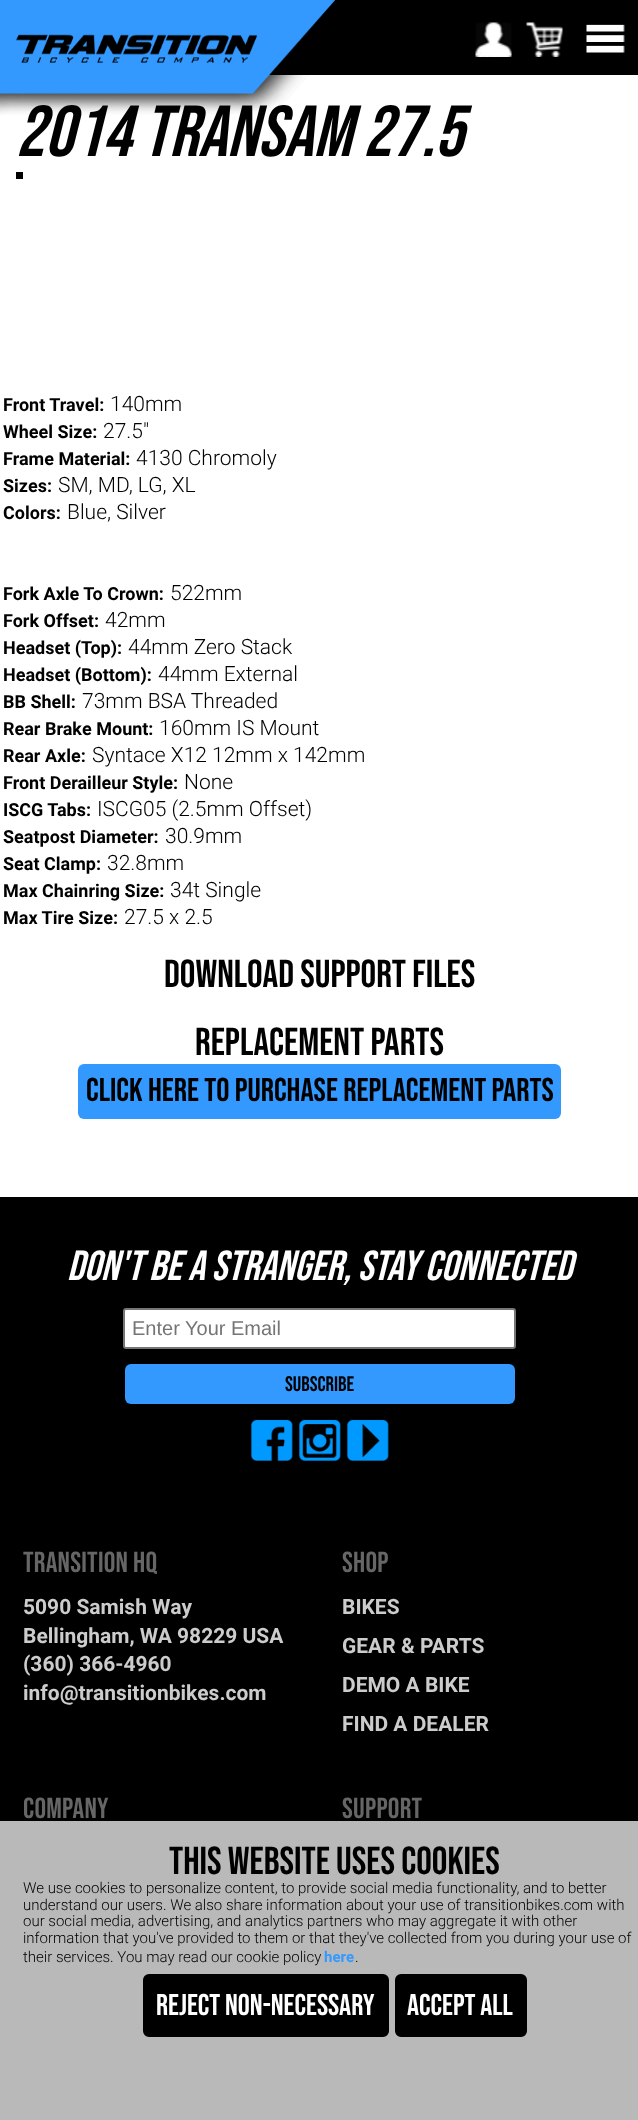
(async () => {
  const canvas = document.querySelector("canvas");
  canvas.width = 638;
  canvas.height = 2120;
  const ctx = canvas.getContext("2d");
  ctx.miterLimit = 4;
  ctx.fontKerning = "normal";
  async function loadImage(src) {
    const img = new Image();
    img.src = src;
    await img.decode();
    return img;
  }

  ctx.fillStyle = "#000000";
  ctx.fillRect(0, 0, 638, 2120);
  ctx.drawImage(await loadImage("img/2.png"), 475, 22, 37, 35);
  ctx.drawImage(await loadImage("img/3.png"), 526, 22, 37, 35);
  ctx.drawImage(await loadImage("img/4.png"), 586, 24, 39, 29);
  ctx.fillStyle = "#ffffff";
  ctx.fillRect(0, 75, 638, 1122);
  ctx.fillStyle = "#000000";
  ctx.fillRect(16, 172, 7, 7);
  ctx.fillStyle = "#3399ff";
  ctx.beginPath();
  ctx.roundRect(78, 1064, 483, 55, 6);
  ctx.fill();
  ctx.fillStyle = "#ffffff";
  ctx.beginPath();
  ctx.roundRect(124, 1309, 391, 39, 2);
  ctx.fill();
  ctx.strokeStyle = "#767676";
  ctx.lineWidth = 2;
  ctx.stroke();
  ctx.fillStyle = "#3399ff";
  ctx.beginPath();
  ctx.roundRect(125, 1364, 390, 40, 6);
  ctx.fill();
  ctx.drawImage(await loadImage("img/5.png"), 251, 1419, 42, 42);
  ctx.drawImage(await loadImage("img/6.png"), 299, 1419, 42, 42);
  ctx.drawImage(await loadImage("img/7.png"), 347, 1419, 42, 42);
  ctx.fillStyle = "#b9b9b9";
  ctx.fillRect(0, 1821, 638, 299);
  ctx.fillStyle = "#000000";
  ctx.beginPath();
  ctx.roundRect(146, 1977, 240, 57, 3);
  ctx.fill();
  ctx.strokeStyle = "#000000";
  ctx.lineWidth = 6;
  ctx.stroke();
  ctx.beginPath();
  ctx.roundRect(398, 1977, 126, 57, 3);
  ctx.fill();
  ctx.stroke();
  ctx.font = "italic 72px Bebas Neue";
  ctx.fillText("2014 TRANSAM 27.5", 16, 156);
  ctx.drawImage(await loadImage("img/1.png"), 0, 0, 336, 115);
  ctx.font = "bold 18px Roboto";
  ctx.fillText("Front Travel:", 3, 411);
  ctx.font = "300 21px Roboto";
  ctx.fillText("140mm", 110, 411);
  ctx.font = "bold 18px Roboto";
  ctx.fillText("Wheel Size:", 3, 438);
  ctx.font = "300 21px Roboto";
  ctx.fillText("27.5\"", 103, 438);
  ctx.font = "bold 18px Roboto";
  ctx.fillText("Frame Material:", 3, 465);
  ctx.font = "300 21px Roboto";
  ctx.fillText("4130 Chromoly", 136, 465);
  ctx.font = "bold 18px Roboto";
  ctx.fillText("Sizes:", 3, 492);
  ctx.font = "300 21px Roboto";
  ctx.fillText("SM, MD, LG, XL", 58, 492);
  ctx.font = "bold 18px Roboto";
  ctx.fillText("Colors:", 3, 519);
  ctx.font = "300 21px Roboto";
  ctx.fillText("Blue, Silver", 67, 519);
  ctx.font = "bold 18px Roboto";
  ctx.fillText("Fork Axle To Crown:", 3, 600);
  ctx.font = "300 21px Roboto";
  ctx.fillText("522mm", 170, 600);
  ctx.font = "bold 18px Roboto";
  ctx.fillText("Fork Offset:", 3, 627);
  ctx.font = "300 21px Roboto";
  ctx.fillText("42mm", 105, 627);
  ctx.font = "bold 18px Roboto";
  ctx.fillText("Headset (Top):", 3, 654);
  ctx.font = "300 21px Roboto";
  ctx.fillText("44mm Zero Stack", 128, 654);
  ctx.font = "bold 18px Roboto";
  ctx.fillText("Headset (Bottom):", 3, 681);
  ctx.font = "300 21px Roboto";
  ctx.fillText("44mm External", 158, 681);
  ctx.font = "bold 18px Roboto";
  ctx.fillText("BB Shell:", 3, 708);
  ctx.font = "300 21px Roboto";
  ctx.fillText("73mm BSA Threaded", 82, 708);
  ctx.font = "bold 18px Roboto";
  ctx.fillText("Rear Brake Mount:", 3, 735);
  ctx.font = "300 21px Roboto";
  ctx.fillText("160mm IS Mount", 159, 735);
  ctx.font = "bold 18px Roboto";
  ctx.fillText("Rear Axle:", 3, 762);
  ctx.font = "300 21px Roboto";
  ctx.fillText("Syntace X12 12mm x 142mm", 92, 762);
  ctx.font = "bold 18px Roboto";
  ctx.fillText("Front Derailleur Style:", 3, 789);
  ctx.font = "300 21px Roboto";
  ctx.fillText("None", 184, 789);
  ctx.font = "bold 18px Roboto";
  ctx.fillText("ISCG Tabs:", 3, 816);
  ctx.font = "300 21px Roboto";
  ctx.fillText("ISCG05 (2.5mm Offset)", 97, 816);
  ctx.font = "bold 18px Roboto";
  ctx.fillText("Seatpost Diameter:", 3, 843);
  ctx.font = "300 21px Roboto";
  ctx.fillText("30.9mm", 165, 843);
  ctx.font = "bold 18px Roboto";
  ctx.fillText("Seat Clamp:", 3, 870);
  ctx.font = "300 21px Roboto";
  ctx.fillText("32.8mm", 107, 870);
  ctx.font = "bold 18px Roboto";
  ctx.fillText("Max Chainring Size:", 3, 897);
  ctx.font = "300 21px Roboto";
  ctx.fillText("34t Single", 170, 897);
  ctx.font = "bold 18px Roboto";
  ctx.fillText("Max Tire Size:", 3, 924);
  ctx.font = "300 21px Roboto";
  ctx.fillText("27.5 x 2.5", 124, 924);
  ctx.font = "39px Bebas Neue";
  ctx.fillText("DOWNLOAD SUPPORT FILES", 164, 987);
  ctx.fillText("REPLACEMENT PARTS", 195, 1055);
  ctx.font = "33px Bebas Neue";
  ctx.fillText("CLICK HERE TO PURCHASE REPLACEMENT PARTS", 86, 1101);
  ctx.font = "italic 42px Bebas Neue";
  ctx.fillStyle = "#ffffff";
  ctx.fillText("DON'T BE A STRANGER, STAY CONNECTED", 67, 1280);
  ctx.font = "20px Liberation Sans";
  ctx.fillStyle = "#757575";
  ctx.fillText("Enter Your Email", 132, 1335);
  ctx.font = "21px Bebas Neue";
  ctx.fillStyle = "#000000";
  ctx.fillText("SUBSCRIBE", 285, 1391);
  ctx.letterSpacing = "0.25px";
  ctx.font = "29px Bebas Neue";
  ctx.fillStyle = "#666666";
  ctx.fillText("TRANSITION HQ", 23, 1572);
  ctx.letterSpacing = "0px";
  ctx.font = "bold 21px Roboto";
  ctx.fillStyle = "#cccccc";
  for (const [text, x, y] of [
    ["5090 Samish Way", 23, 1614],
    ["Bellingham, WA 98229 USA", 23, 1643],
    ["(360) 366-4960", 23, 1671],
    ["info@transitionbikes.com", 23, 1700],
  ]) {
    ctx.fillText(text, x, y);
  }
  ctx.letterSpacing = "0.25px";
  ctx.font = "29px Bebas Neue";
  ctx.fillStyle = "#666666";
  ctx.fillText("SHOP", 342, 1572);
  ctx.letterSpacing = "0px";
  ctx.font = "bold 21px Roboto";
  ctx.fillStyle = "#cccccc";
  for (const [text, x, y] of [
    ["BIKES", 342, 1614],
    ["GEAR & PARTS", 342, 1653],
    ["DEMO A BIKE", 342, 1692],
    ["FIND A DEALER", 342, 1731],
  ]) {
    ctx.fillText(text, x, y);
  }
  ctx.letterSpacing = "0.25px";
  ctx.font = "29px Bebas Neue";
  ctx.fillStyle = "#666666";
  ctx.fillText("COMPANY", 23, 1818);
  ctx.fillText("SUPPORT", 342, 1818);
  ctx.letterSpacing = "0px";
  ctx.font = "39px Bebas Neue";
  ctx.fillStyle = "#000000";
  ctx.fillText("THIS WEBSITE USES COOKIES", 169, 1874);
  ctx.font = "300 15px Roboto";
  for (const [text, x, y] of [
    ["We use cookies to personalize content, to provide social media functionality, and to better", 23, 1893],
    ["understand our users. We also share information about your use of transitionbikes.com with", 23, 1910],
    ["our social media, advertising, and analytics partners who may aggregate it with other", 23, 1926],
    ["information that you've provided to them or that they've collected from you during your use of", 23, 1943],
    ["their services. You may read our cookie policy", 23, 1962],
  ]) {
    ctx.fillText(text, x, y);
  }
  ctx.font = "bold 15px Roboto";
  ctx.fillStyle = "#3399ff";
  ctx.fillText("here", 324, 1962);
  ctx.font = "300 15px Roboto";
  ctx.fillStyle = "#000000";
  ctx.fillText(".", 355, 1962);
  ctx.font = "30px Bebas Neue";
  ctx.fillStyle = "#ffffff";
  ctx.fillText("Reject non-necessary", 156, 2015);
  ctx.fillText("Accept all", 407, 2015);
})();
